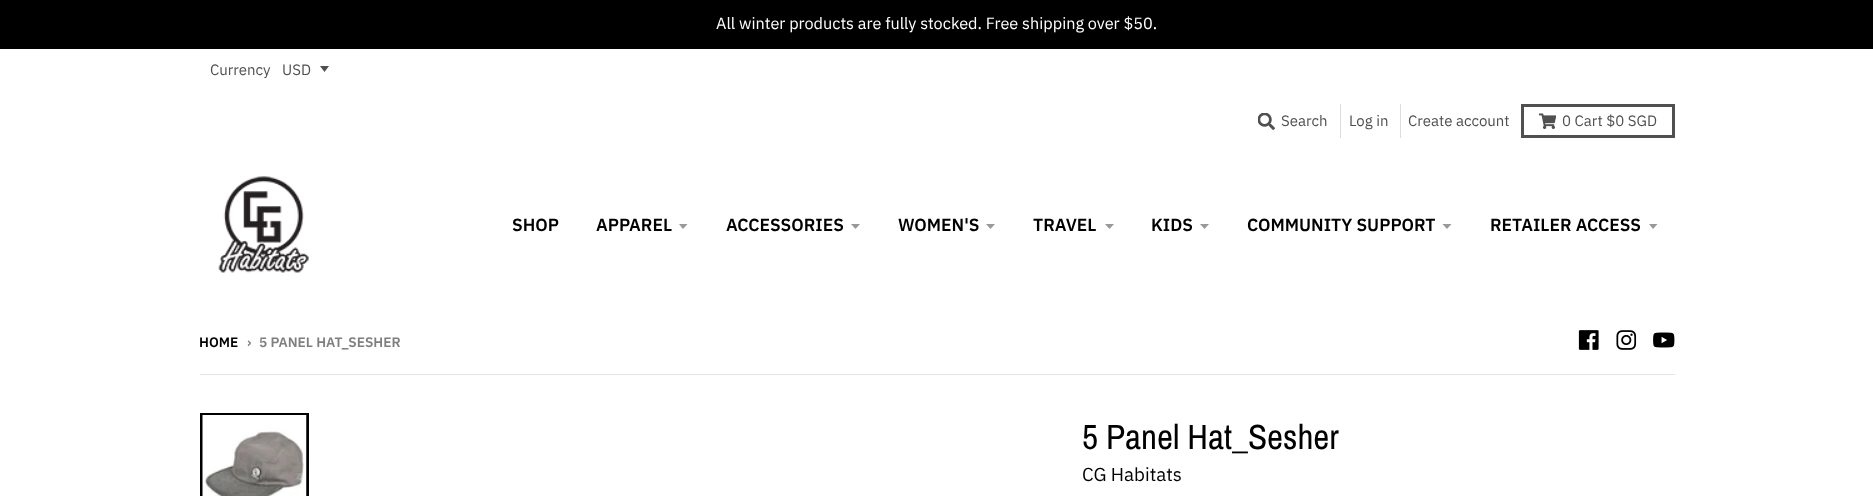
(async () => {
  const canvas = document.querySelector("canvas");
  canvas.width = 1873;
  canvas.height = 496;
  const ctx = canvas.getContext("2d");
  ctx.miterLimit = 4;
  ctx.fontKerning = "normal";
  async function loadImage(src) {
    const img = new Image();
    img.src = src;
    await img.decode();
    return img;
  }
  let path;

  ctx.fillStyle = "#ffffff";
  ctx.fillRect(0, 0, 1873, 496);
  ctx.fillStyle = "#000000";
  ctx.fillRect(0, 0, 1873, 49);
  ctx.fillStyle = "#505050";
  path = new Path2D("M320 66L324.5 72L329 66Z");
  ctx.fill(path);
  ctx.drawImage(await loadImage("img/1.png"), 1258, 113, 17, 17);
  ctx.fillStyle = "#dcdcdc";
  ctx.fillRect(1340, 104, 1, 34);
  ctx.fillRect(1400, 104, 1, 34);
  ctx.strokeStyle = "#505050";
  ctx.lineWidth = 3;
  ctx.strokeRect(1522.5, 105.5, 151, 31);
  ctx.drawImage(await loadImage("img/2.png"), 1539, 113, 17, 16);
  ctx.drawImage(await loadImage("img/3.png"), 218, 176, 91, 97);
  ctx.fillStyle = "#999999";
  path = new Path2D("M679 224L683 229L687.5 224Z");
  ctx.fill(path);
  path = new Path2D("M851 224L855.5 229L860 224Z");
  ctx.fill(path);
  path = new Path2D("M986 224L990.5 229L995 224Z");
  ctx.fill(path);
  path = new Path2D("M1105 224L1109.5 229L1114 224Z");
  ctx.fill(path);
  path = new Path2D("M1200 224L1204.5 229L1209 224Z");
  ctx.fill(path);
  path = new Path2D("M1442.5 224L1447 229L1451.5 224Z");
  ctx.fill(path);
  path = new Path2D("M1649 224L1653 229L1657.5 224Z");
  ctx.fill(path);
  ctx.drawImage(await loadImage("img/4.png"), 1578, 330, 21, 20);
  ctx.drawImage(await loadImage("img/5.png"), 1616, 330, 21, 20);
  ctx.drawImage(await loadImage("img/6.png"), 1653, 332, 22, 16);
  ctx.fillStyle = "#e5e5e5";
  ctx.fillRect(200, 374, 1475, 1);
  ctx.strokeStyle = "#000000";
  ctx.strokeRect(201.5, 414.5, 106, 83);
  ctx.drawImage(await loadImage("img/7.png"), 202, 415, 105, 81);
  ctx.font = "16.25px IBM Plex Sans";
  ctx.fillStyle = "#ffffff";
  ctx.fillText("All winter products are fully stocked. Free shipping over $50.", 716, 29);
  ctx.font = "15px IBM Plex Sans";
  ctx.fillStyle = "#505050";
  for (const [text, x, y] of [
    ["Currency", 210, 75],
    ["USD", 282, 75],
    ["Search", 1281, 126],
    ["Log in", 1349, 126],
    ["Create account", 1408, 126],
    ["0 Cart $0 SGD", 1562, 126],
  ]) {
    ctx.fillText(text, x, y);
  }
  ctx.font = "600 17.5px IBM Plex Sans";
  ctx.fillStyle = "#000000";
  for (const [text, x, y] of [
    ["SHOP", 512, 231],
    ["APPAREL", 596, 231],
    ["ACCESSORIES", 726, 231],
    ["WOMEN'S", 898, 231],
    ["TRAVEL", 1033, 231],
    ["KIDS", 1151, 231],
    ["COMMUNITY SUPPORT", 1247, 231],
    ["RETAILER ACCESS", 1490, 231],
  ]) {
    ctx.fillText(text, x, y);
  }
  ctx.font = "600 13.75px IBM Plex Sans";
  ctx.fillText("HOME", 199, 347);
  ctx.fillStyle = "#7f7f7f";
  ctx.fillText("›", 247, 347);
  ctx.fillText("5 PANEL HAT_SESHER", 259, 347);
  ctx.font = "35px Archivo Narrow";
  ctx.fillStyle = "#000000";
  ctx.fillText("5 Panel Hat_Sesher", 1082, 449);
  ctx.font = "18.75px IBM Plex Sans";
  ctx.fillText("CG Habitats", 1082, 481);
})();
